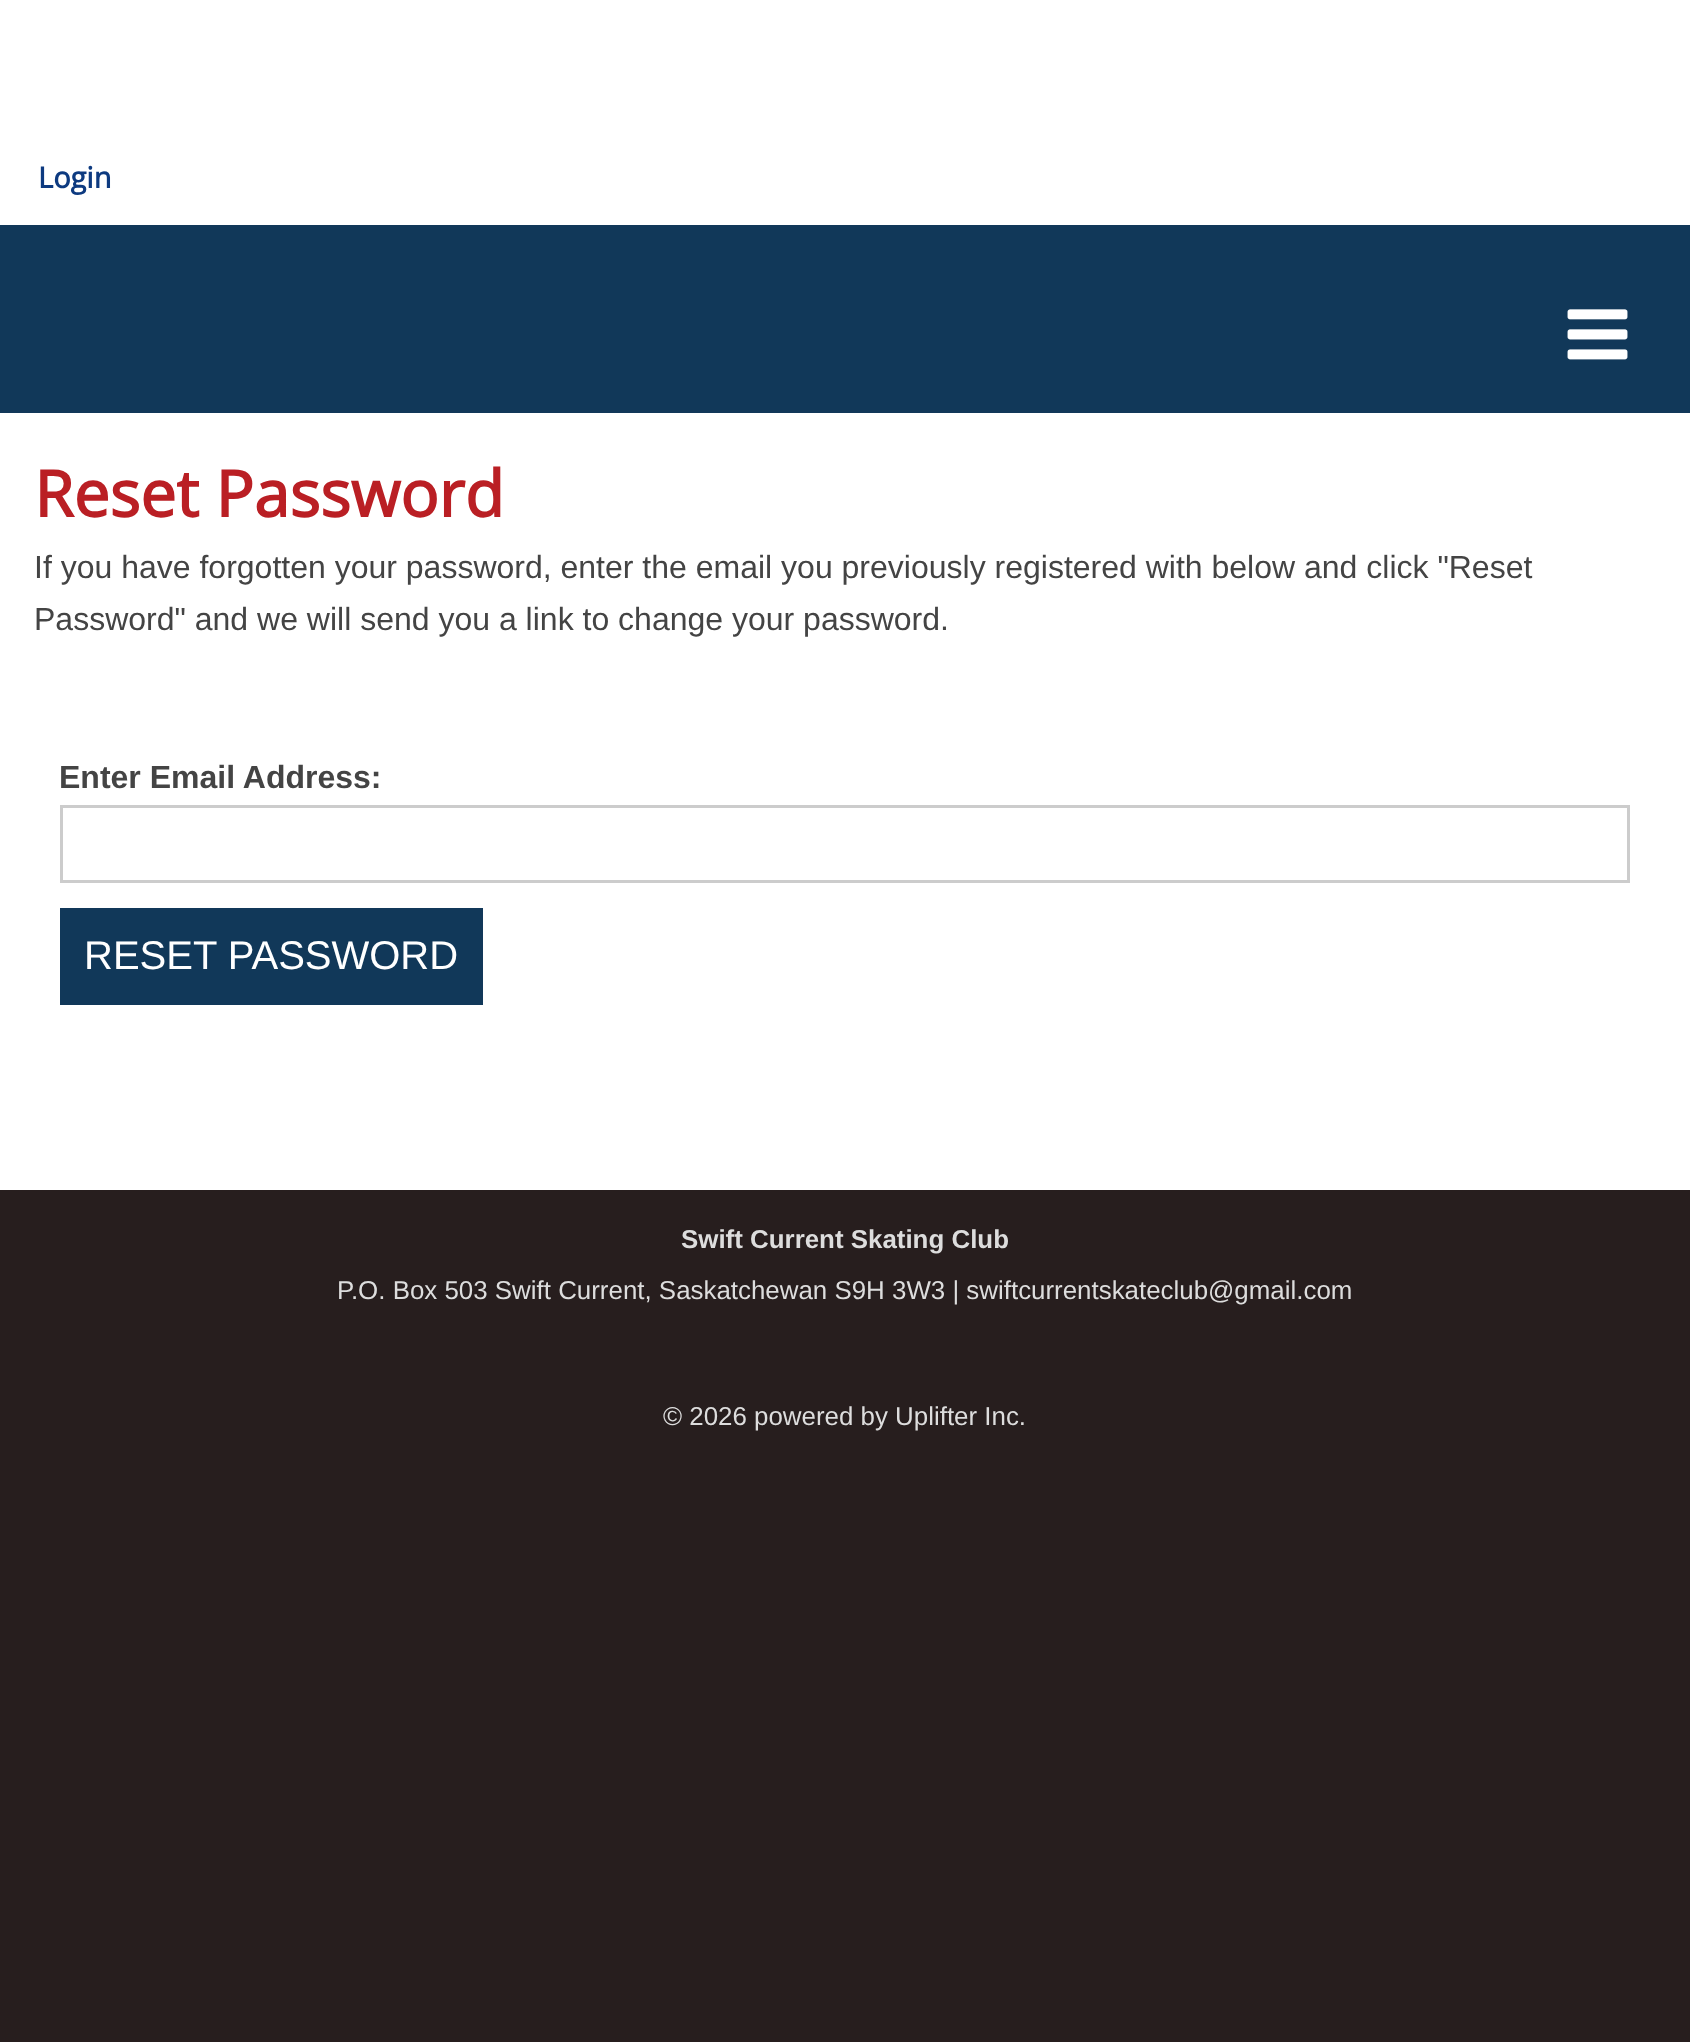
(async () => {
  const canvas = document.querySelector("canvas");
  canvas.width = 1690;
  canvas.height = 2042;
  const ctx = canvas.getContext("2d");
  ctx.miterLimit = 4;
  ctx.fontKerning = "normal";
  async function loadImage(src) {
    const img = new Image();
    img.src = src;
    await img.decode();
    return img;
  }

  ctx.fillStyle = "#271e1e";
  ctx.fillRect(0, 0, 1690, 2042);
  ctx.fillStyle = "#ffffff";
  ctx.fillRect(0, 0, 1690, 225);
  ctx.fillStyle = "#113859";
  ctx.fillRect(0, 225, 1690, 188);
  ctx.drawImage(await loadImage("img/1.png"), 1567, 309, 61, 51);
  ctx.fillStyle = "#ffffff";
  ctx.fillRect(0, 413, 1690, 777);
  ctx.strokeStyle = "#cccccc";
  ctx.lineWidth = 3;
  ctx.strokeRect(61.5, 806.5, 1567, 75);
  ctx.fillStyle = "#113859";
  ctx.fillRect(60, 908, 423, 97);
  ctx.font = "bold 29px Open Sans";
  ctx.fillStyle = "#0d3a80";
  ctx.fillText("Login", 38, 188);
  ctx.font = "bold 64px Open Sans";
  ctx.fillStyle = "#ba1f24";
  ctx.fillText("Reset Password", 34, 517);
  ctx.font = "32px Liberation Sans";
  ctx.fillStyle = "#444444";
  ctx.fillText("If you have forgotten your password, enter the email you previously registered with below and click \"Reset", 34, 578);
  ctx.fillText("Password\" and we will send you a link to change your password.", 34, 630);
  ctx.font = "bold 32px Liberation Sans";
  ctx.fillText("Enter Email Address:", 59, 788);
  ctx.font = "40px Liberation Sans";
  ctx.fillStyle = "#ffffff";
  ctx.fillText("RESET PASSWORD", 84, 969);
  ctx.font = "bold 25.9px Liberation Sans";
  ctx.fillStyle = "#dddddd";
  ctx.fillText("Swift Current Skating Club", 681, 1248);
  ctx.font = "25.9px Liberation Sans";
  ctx.fillText("P.O. Box 503 Swift Current, Saskatchewan S9H 3W3 | swiftcurrentskateclub@gmail.com", 337, 1299);
  ctx.fillText("© 2026 powered by Uplifter Inc.", 663, 1425);
})();
